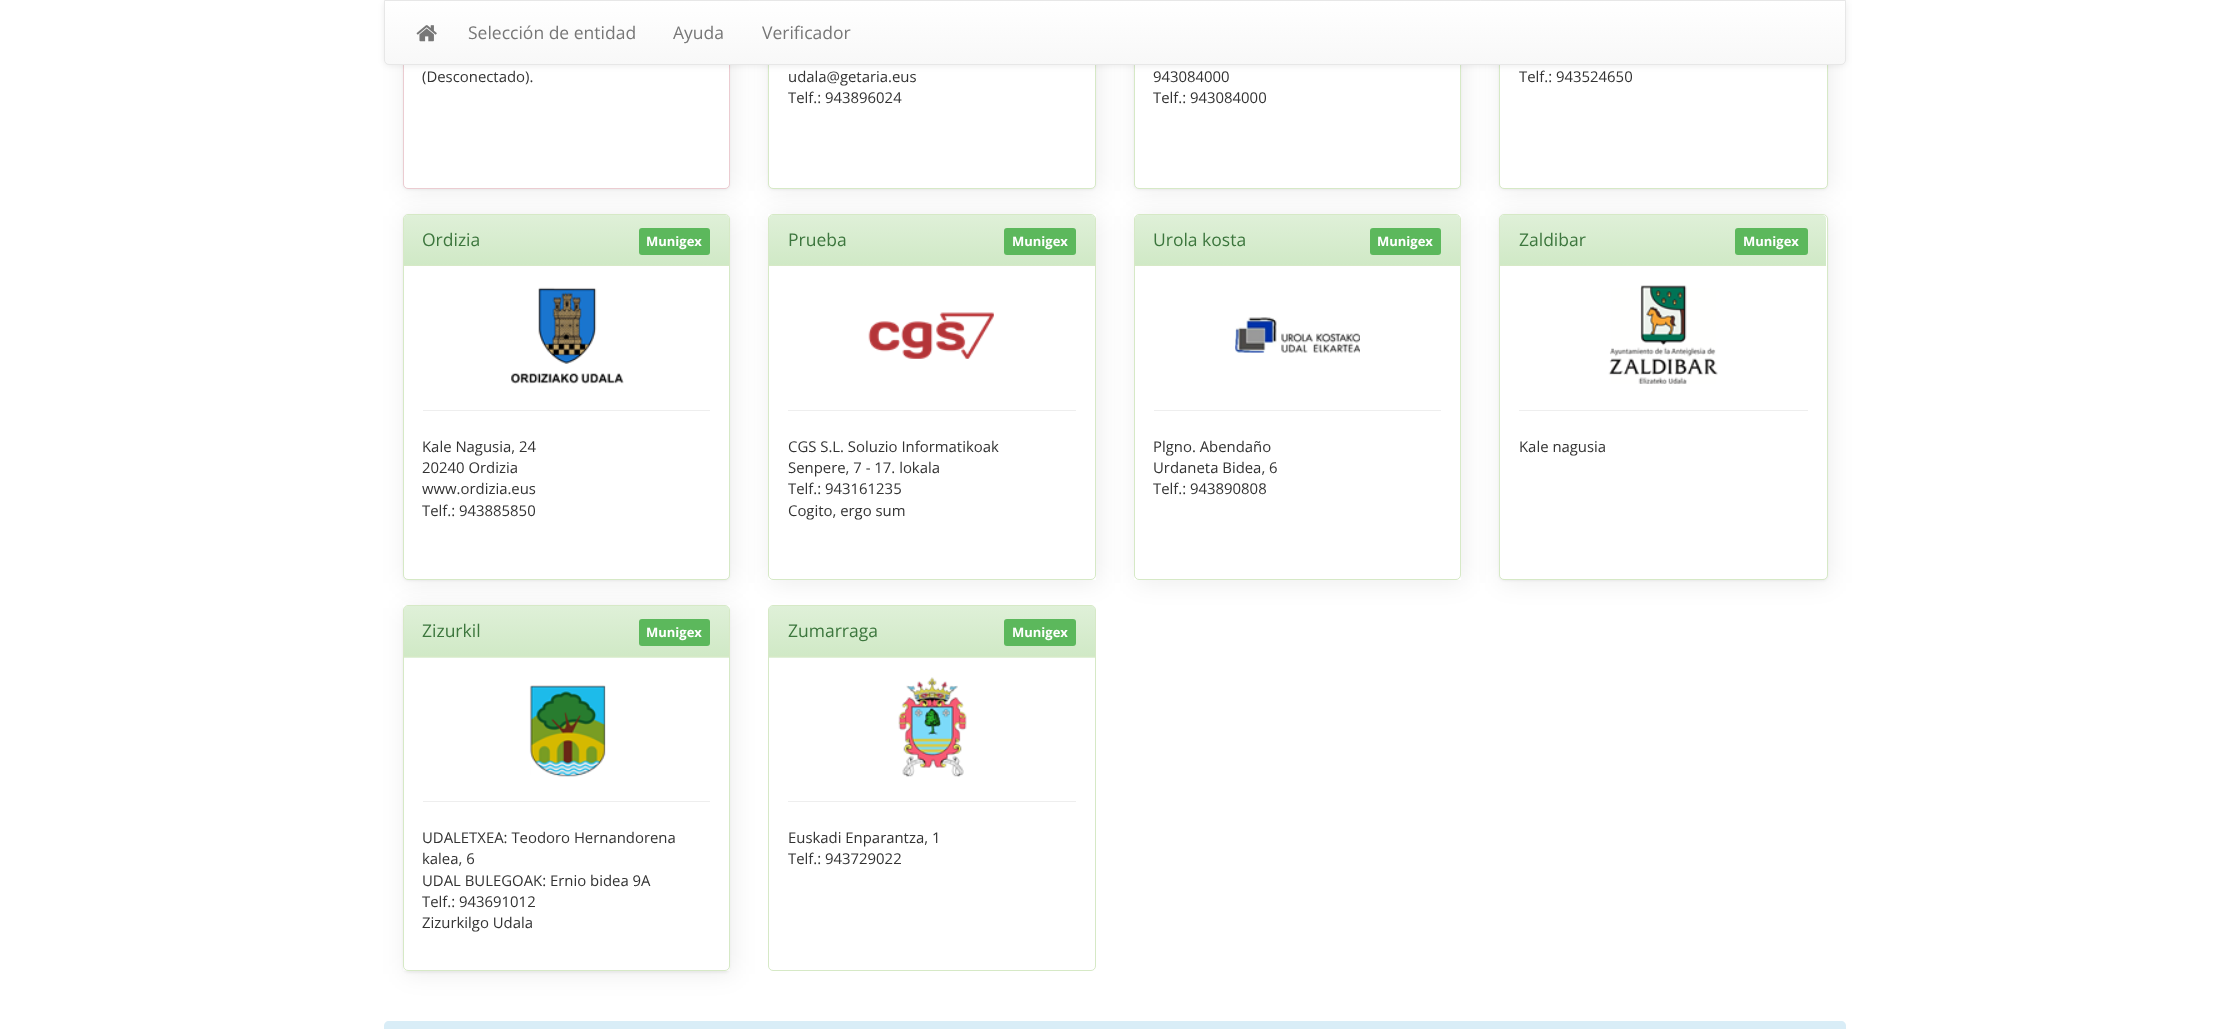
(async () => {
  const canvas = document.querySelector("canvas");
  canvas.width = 2228;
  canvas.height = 1029;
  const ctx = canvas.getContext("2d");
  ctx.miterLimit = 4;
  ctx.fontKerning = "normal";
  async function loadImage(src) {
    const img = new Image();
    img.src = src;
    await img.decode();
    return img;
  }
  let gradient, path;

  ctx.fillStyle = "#ffffff";
  ctx.fillRect(0, 0, 2228, 1029);
  ctx.fillStyle = "rgba(0, 0, 0, 0.07)";
  ctx.filter = "blur(12.5px)";
  ctx.beginPath();
  ctx.rect(405, -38, 328, 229);
  ctx.fill();
  ctx.filter = "none";
  ctx.fillStyle = "rgba(0, 0, 0, 0.05)";
  ctx.filter = "blur(1px)";
  ctx.beginPath();
  ctx.roundRect(403, -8, 327, 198, 5);
  ctx.fill();
  ctx.filter = "none";
  ctx.fillStyle = "#ffffff";
  ctx.beginPath();
  ctx.roundRect(403.5, -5.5, 326, 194, 4.5);
  ctx.fill();
  ctx.strokeStyle = "#ebccd1";
  ctx.stroke();
  ctx.fillStyle = "rgba(0, 0, 0, 0.07)";
  ctx.filter = "blur(12.5px)";
  ctx.beginPath();
  ctx.rect(770, -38, 329, 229);
  ctx.fill();
  ctx.filter = "none";
  ctx.fillStyle = "rgba(0, 0, 0, 0.05)";
  ctx.filter = "blur(1px)";
  ctx.beginPath();
  ctx.roundRect(768, -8, 328, 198, 5);
  ctx.fill();
  ctx.filter = "none";
  ctx.fillStyle = "#ffffff";
  ctx.beginPath();
  ctx.roundRect(768.5, -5.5, 327, 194, 4.5);
  ctx.fill();
  ctx.strokeStyle = "#d6e9c6";
  ctx.stroke();
  ctx.fillStyle = "rgba(0, 0, 0, 0.07)";
  ctx.filter = "blur(12.5px)";
  ctx.beginPath();
  ctx.rect(1136, -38, 328, 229);
  ctx.fill();
  ctx.filter = "none";
  ctx.fillStyle = "rgba(0, 0, 0, 0.05)";
  ctx.filter = "blur(1px)";
  ctx.beginPath();
  ctx.roundRect(1134, -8, 327, 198, 5);
  ctx.fill();
  ctx.filter = "none";
  ctx.fillStyle = "#ffffff";
  ctx.beginPath();
  ctx.roundRect(1134.5, -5.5, 326, 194, 4.5);
  ctx.fill();
  ctx.stroke();
  ctx.fillStyle = "rgba(0, 0, 0, 0.07)";
  ctx.filter = "blur(12.5px)";
  ctx.beginPath();
  ctx.rect(1501, -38, 329, 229);
  ctx.fill();
  ctx.filter = "none";
  ctx.fillStyle = "rgba(0, 0, 0, 0.05)";
  ctx.filter = "blur(1px)";
  ctx.beginPath();
  ctx.roundRect(1499, -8, 329, 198, 5);
  ctx.fill();
  ctx.filter = "none";
  ctx.fillStyle = "#ffffff";
  ctx.beginPath();
  ctx.roundRect(1499.5, -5.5, 328, 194, 4.5);
  ctx.fill();
  ctx.stroke();
  ctx.fillStyle = "rgba(0, 0, 0, 0.07)";
  ctx.filter = "blur(3px)";
  ctx.beginPath();
  ctx.roundRect(384, 1, 1462, 65, 5);
  ctx.fill();
  ctx.filter = "none";
  ctx.save();
  ctx.beginPath();
  ctx.roundRect(384, 0, 1462, 65, [0, 0, 5, 5]);
  ctx.clip();
  gradient = ctx.createLinearGradient(1115, 1.2, 1115, 64);
  gradient.addColorStop(0, "#ffffff");
  gradient.addColorStop(1, "#f8f8f8");
  ctx.fillStyle = gradient;
  ctx.fillRect(384, 1, 1462, 63);
  ctx.restore();
  ctx.beginPath();
  ctx.roundRect(384.5, 0.5, 1461, 64, [0, 0, 4.5, 4.5]);
  ctx.strokeStyle = "#e7e7e7";
  ctx.stroke();
  ctx.drawImage(await loadImage("img/1.png"), 416, 25, 21, 17);
  ctx.filter = "blur(12.5px)";
  ctx.beginPath();
  ctx.rect(405, 216, 328, 367);
  ctx.fill();
  ctx.filter = "none";
  ctx.fillStyle = "rgba(0, 0, 0, 0.05)";
  ctx.filter = "blur(1px)";
  ctx.beginPath();
  ctx.roundRect(403, 215, 327, 366, 5);
  ctx.fill();
  ctx.filter = "none";
  ctx.fillStyle = "#ffffff";
  ctx.beginPath();
  ctx.roundRect(403.5, 214.5, 326, 365, 4.5);
  ctx.fill();
  ctx.strokeStyle = "#d6e9c6";
  ctx.stroke();
  gradient = ctx.createLinearGradient(566, 215, 566, 265);
  gradient.addColorStop(0, "#dff0d8");
  gradient.addColorStop(1, "#d0e9c6");
  ctx.fillStyle = gradient;
  ctx.beginPath();
  ctx.roundRect(404, 215, 325, 50, [4, 4, 0, 0]);
  ctx.fill();
  ctx.fillStyle = "#d6e9c6";
  ctx.fillRect(404, 265, 325, 1);
  ctx.fillStyle = "#5cb85c";
  ctx.beginPath();
  ctx.roundRect(639, 228, 71, 27, 3);
  ctx.fill();
  ctx.drawImage(await loadImage("img/2.png"), 511, 287, 113, 97);
  ctx.fillStyle = "#eeeeee";
  ctx.fillRect(423, 410, 287, 1);
  ctx.save();
  path = new Path2D("M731 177H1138V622H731ZM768 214H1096V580H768Z");
  ctx.clip(path, "evenodd");
  ctx.fillStyle = "rgba(0, 0, 0, 0.07)";
  ctx.filter = "blur(12.5px)";
  ctx.beginPath();
  ctx.rect(770, 216, 329, 367);
  ctx.fill();
  ctx.filter = "none";
  ctx.restore();
  ctx.beginPath();
  ctx.roundRect(768.5, 214.5, 327, 365, 4.5);
  ctx.stroke();
  gradient = ctx.createLinearGradient(932, 215, 932, 265);
  gradient.addColorStop(0, "#dff0d8");
  gradient.addColorStop(1, "#d0e9c6");
  ctx.fillStyle = gradient;
  ctx.beginPath();
  ctx.roundRect(769, 215, 326, 50, [4, 4, 0, 0]);
  ctx.fill();
  ctx.fillStyle = "#d6e9c6";
  ctx.fillRect(769, 265, 326, 1);
  ctx.fillStyle = "#5cb85c";
  ctx.beginPath();
  ctx.roundRect(1004, 228, 72, 27, 3);
  ctx.fill();
  ctx.drawImage(await loadImage("img/3.png"), 868, 312, 126, 47);
  ctx.fillStyle = "#eeeeee";
  ctx.fillRect(788, 410, 288, 1);
  ctx.save();
  path = new Path2D("M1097 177H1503V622H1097ZM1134 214H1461V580H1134Z");
  ctx.clip(path, "evenodd");
  ctx.fillStyle = "rgba(0, 0, 0, 0.07)";
  ctx.filter = "blur(12.5px)";
  ctx.beginPath();
  ctx.rect(1136, 216, 328, 367);
  ctx.fill();
  ctx.filter = "none";
  ctx.restore();
  ctx.beginPath();
  ctx.roundRect(1134.5, 214.5, 326, 365, 4.5);
  ctx.stroke();
  gradient = ctx.createLinearGradient(1298, 215, 1298, 265);
  gradient.addColorStop(0, "#dff0d8");
  gradient.addColorStop(1, "#d0e9c6");
  ctx.fillStyle = gradient;
  ctx.beginPath();
  ctx.roundRect(1135, 215, 325, 50, [4, 4, 0, 0]);
  ctx.fill();
  ctx.fillStyle = "#d6e9c6";
  ctx.fillRect(1135, 265, 325, 1);
  ctx.fillStyle = "#5cb85c";
  ctx.beginPath();
  ctx.roundRect(1370, 228, 71, 27, 3);
  ctx.fill();
  ctx.drawImage(await loadImage("img/4.png"), 1235, 317, 125, 36);
  ctx.fillStyle = "#eeeeee";
  ctx.fillRect(1154, 410, 287, 1);
  ctx.fillStyle = "rgba(0, 0, 0, 0.07)";
  ctx.filter = "blur(12.5px)";
  ctx.beginPath();
  ctx.rect(1501, 216, 329, 367);
  ctx.fill();
  ctx.filter = "none";
  ctx.fillStyle = "rgba(0, 0, 0, 0.05)";
  ctx.filter = "blur(1px)";
  ctx.beginPath();
  ctx.roundRect(1499, 215, 329, 366, 5);
  ctx.fill();
  ctx.filter = "none";
  ctx.fillStyle = "#ffffff";
  ctx.beginPath();
  ctx.roundRect(1499.5, 214.5, 328, 365, 4.5);
  ctx.fill();
  ctx.stroke();
  gradient = ctx.createLinearGradient(1663, 215, 1663, 265);
  gradient.addColorStop(0, "#dff0d8");
  gradient.addColorStop(1, "#d0e9c6");
  ctx.fillStyle = gradient;
  ctx.beginPath();
  ctx.roundRect(1500, 215, 326, 50, [4, 4, 0, 0]);
  ctx.fill();
  ctx.fillStyle = "#d6e9c6";
  ctx.fillRect(1500, 265, 326, 1);
  ctx.fillStyle = "#5cb85c";
  ctx.beginPath();
  ctx.roundRect(1735, 228, 73, 27, 3);
  ctx.fill();
  ctx.drawImage(await loadImage("img/5.png"), 1608, 285, 110, 99);
  ctx.fillStyle = "#eeeeee";
  ctx.fillRect(1519, 410, 289, 1);
  ctx.save();
  path = new Path2D("M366 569H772V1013H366ZM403 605H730V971H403Z");
  ctx.clip(path, "evenodd");
  ctx.fillStyle = "rgba(0, 0, 0, 0.07)";
  ctx.filter = "blur(12.5px)";
  ctx.beginPath();
  ctx.rect(405, 608, 328, 366);
  ctx.fill();
  ctx.filter = "none";
  ctx.restore();
  ctx.save();
  path = new Path2D("M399 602H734V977H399ZM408 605H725C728 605 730 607 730 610V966C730 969 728 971 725 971H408C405 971 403 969 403 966V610C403 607 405 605 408 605Z");
  ctx.clip(path, "evenodd");
  ctx.fillStyle = "rgba(0, 0, 0, 0.05)";
  ctx.filter = "blur(1px)";
  ctx.beginPath();
  ctx.roundRect(403, 606, 327, 367, 5);
  ctx.fill();
  ctx.filter = "none";
  ctx.restore();
  ctx.beginPath();
  ctx.roundRect(403.5, 605.5, 326, 365, 4.5);
  ctx.stroke();
  ctx.fillStyle = "#dff0d8";
  ctx.beginPath();
  ctx.roundRect(404, 606, 325, 52, [4, 4, 0, 0]);
  ctx.fill();
  gradient = ctx.createLinearGradient(566, 606, 566, 656);
  gradient.addColorStop(0, "#dff0d8");
  gradient.addColorStop(1, "#d0e9c6");
  ctx.fillStyle = gradient;
  ctx.beginPath();
  ctx.roundRect(404, 606, 325, 50, [4, 4, 0, 0]);
  ctx.fill();
  ctx.fillStyle = "#d6e9c6";
  ctx.fillRect(404, 656, 325, 1);
  ctx.fillStyle = "#5cb85c";
  ctx.beginPath();
  ctx.roundRect(639, 619, 71, 27, 3);
  ctx.fill();
  ctx.drawImage(await loadImage("img/6.png"), 529, 685, 77, 92);
  ctx.fillStyle = "#eeeeee";
  ctx.fillRect(423, 801, 287, 1);
  ctx.beginPath();
  ctx.roundRect(768.5, 605.5, 327, 365, 4.5);
  ctx.stroke();
  ctx.fillStyle = "#dff0d8";
  ctx.beginPath();
  ctx.roundRect(769, 606, 326, 52, [4, 4, 0, 0]);
  ctx.fill();
  gradient = ctx.createLinearGradient(932, 606, 932, 656);
  gradient.addColorStop(0, "#dff0d8");
  gradient.addColorStop(1, "#d0e9c6");
  ctx.fillStyle = gradient;
  ctx.beginPath();
  ctx.roundRect(769, 606, 326, 50, [4, 4, 0, 0]);
  ctx.fill();
  ctx.fillStyle = "#d6e9c6";
  ctx.fillRect(769, 656, 326, 1);
  ctx.fillStyle = "#5cb85c";
  ctx.beginPath();
  ctx.roundRect(1004, 619, 72, 27, 3);
  ctx.fill();
  ctx.drawImage(await loadImage("img/7.png"), 898, 677, 69, 100);
  ctx.fillStyle = "#eeeeee";
  ctx.fillRect(788, 801, 288, 1);
  ctx.fillStyle = "#d9edf7";
  path = new Path2D("M389 1021H1841C1844 1021 1846 1023 1846 1026V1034H384V1026C384 1023 386 1021 389 1021Z");
  ctx.fill(path);
  ctx.font = "17.5px Open Sans";
  ctx.fillStyle = "#777777";
  for (const [text, x, y] of [
    ["Selección de entidad", 468, 39],
    ["Ayuda", 673, 39],
    ["Verificador", 762, 39],
  ]) {
    ctx.fillText(text, x, y);
  }
  ctx.font = "14.9px Open Sans";
  ctx.fillStyle = "#333333";
  for (const [text, x, y] of [
    ["(Desconectado).", 422, 82],
    ["udala@getaria.eus", 788, 82],
    ["Telf.: 943896024", 788, 103],
    ["943084000", 1153, 82],
    ["Telf.: 943084000", 1153, 103],
    ["Telf.: 943524650", 1519, 82],
  ]) {
    ctx.fillText(text, x, y);
  }
  ctx.font = "17.5px Open Sans";
  ctx.fillStyle = "#3c763d";
  ctx.fillText("Ordizia", 422, 246);
  ctx.font = "bold 13px Open Sans";
  ctx.fillStyle = "#ffffff";
  ctx.fillText("Munigex", 646, 246);
  ctx.font = "14.9px Open Sans";
  ctx.fillStyle = "#333333";
  for (const [text, x, y] of [
    ["Kale Nagusia, 24", 422, 452],
    ["20240 Ordizia", 422, 473],
    ["www.ordizia.eus", 422, 494],
    ["Telf.: 943885850", 422, 516],
  ]) {
    ctx.fillText(text, x, y);
  }
  ctx.font = "17.5px Open Sans";
  ctx.fillStyle = "#3c763d";
  ctx.fillText("Prueba", 788, 246);
  ctx.font = "bold 13px Open Sans";
  ctx.fillStyle = "#ffffff";
  ctx.fillText("Munigex", 1012, 246);
  ctx.font = "14.9px Open Sans";
  ctx.fillStyle = "#333333";
  for (const [text, x, y] of [
    ["CGS S.L. Soluzio Informatikoak", 788, 452],
    ["Senpere, 7 - 17. lokala", 788, 473],
    ["Telf.: 943161235", 788, 494],
    ["Cogito, ergo sum", 788, 516],
  ]) {
    ctx.fillText(text, x, y);
  }
  ctx.font = "17.5px Open Sans";
  ctx.fillStyle = "#3c763d";
  ctx.fillText("Urola kosta", 1153, 246);
  ctx.font = "bold 13px Open Sans";
  ctx.fillStyle = "#ffffff";
  ctx.fillText("Munigex", 1377, 246);
  ctx.font = "14.9px Open Sans";
  ctx.fillStyle = "#333333";
  for (const [text, x, y] of [
    ["Plgno. Abendaño", 1153, 452],
    ["Urdaneta Bidea, 6", 1153, 473],
    ["Telf.: 943890808", 1153, 494],
  ]) {
    ctx.fillText(text, x, y);
  }
  ctx.font = "17.5px Open Sans";
  ctx.fillStyle = "#3c763d";
  ctx.fillText("Zaldibar", 1519, 246);
  ctx.font = "bold 13px Open Sans";
  ctx.fillStyle = "#ffffff";
  ctx.fillText("Munigex", 1743, 246);
  ctx.font = "14.9px Open Sans";
  ctx.fillStyle = "#333333";
  ctx.fillText("Kale nagusia", 1519, 452);
  ctx.font = "17.5px Open Sans";
  ctx.fillStyle = "#3c763d";
  ctx.fillText("Zizurkil", 422, 637);
  ctx.font = "bold 13px Open Sans";
  ctx.fillStyle = "#ffffff";
  ctx.fillText("Munigex", 646, 637);
  ctx.font = "14.9px Open Sans";
  ctx.fillStyle = "#333333";
  for (const [text, x, y] of [
    ["UDALETXEA: Teodoro Hernandorena", 422, 843],
    ["kalea, 6", 422, 864],
    ["UDAL BULEGOAK: Ernio bidea 9A", 422, 886],
    ["Telf.: 943691012", 422, 907],
    ["Zizurkilgo Udala", 422, 928],
  ]) {
    ctx.fillText(text, x, y);
  }
  ctx.font = "17.5px Open Sans";
  ctx.fillStyle = "#3c763d";
  ctx.fillText("Zumarraga", 788, 637);
  ctx.font = "bold 13px Open Sans";
  ctx.fillStyle = "#ffffff";
  ctx.fillText("Munigex", 1012, 637);
  ctx.font = "14.9px Open Sans";
  ctx.fillStyle = "#333333";
  ctx.fillText("Euskadi Enparantza, 1", 788, 843);
  ctx.fillText("Telf.: 943729022", 788, 864);
})();
